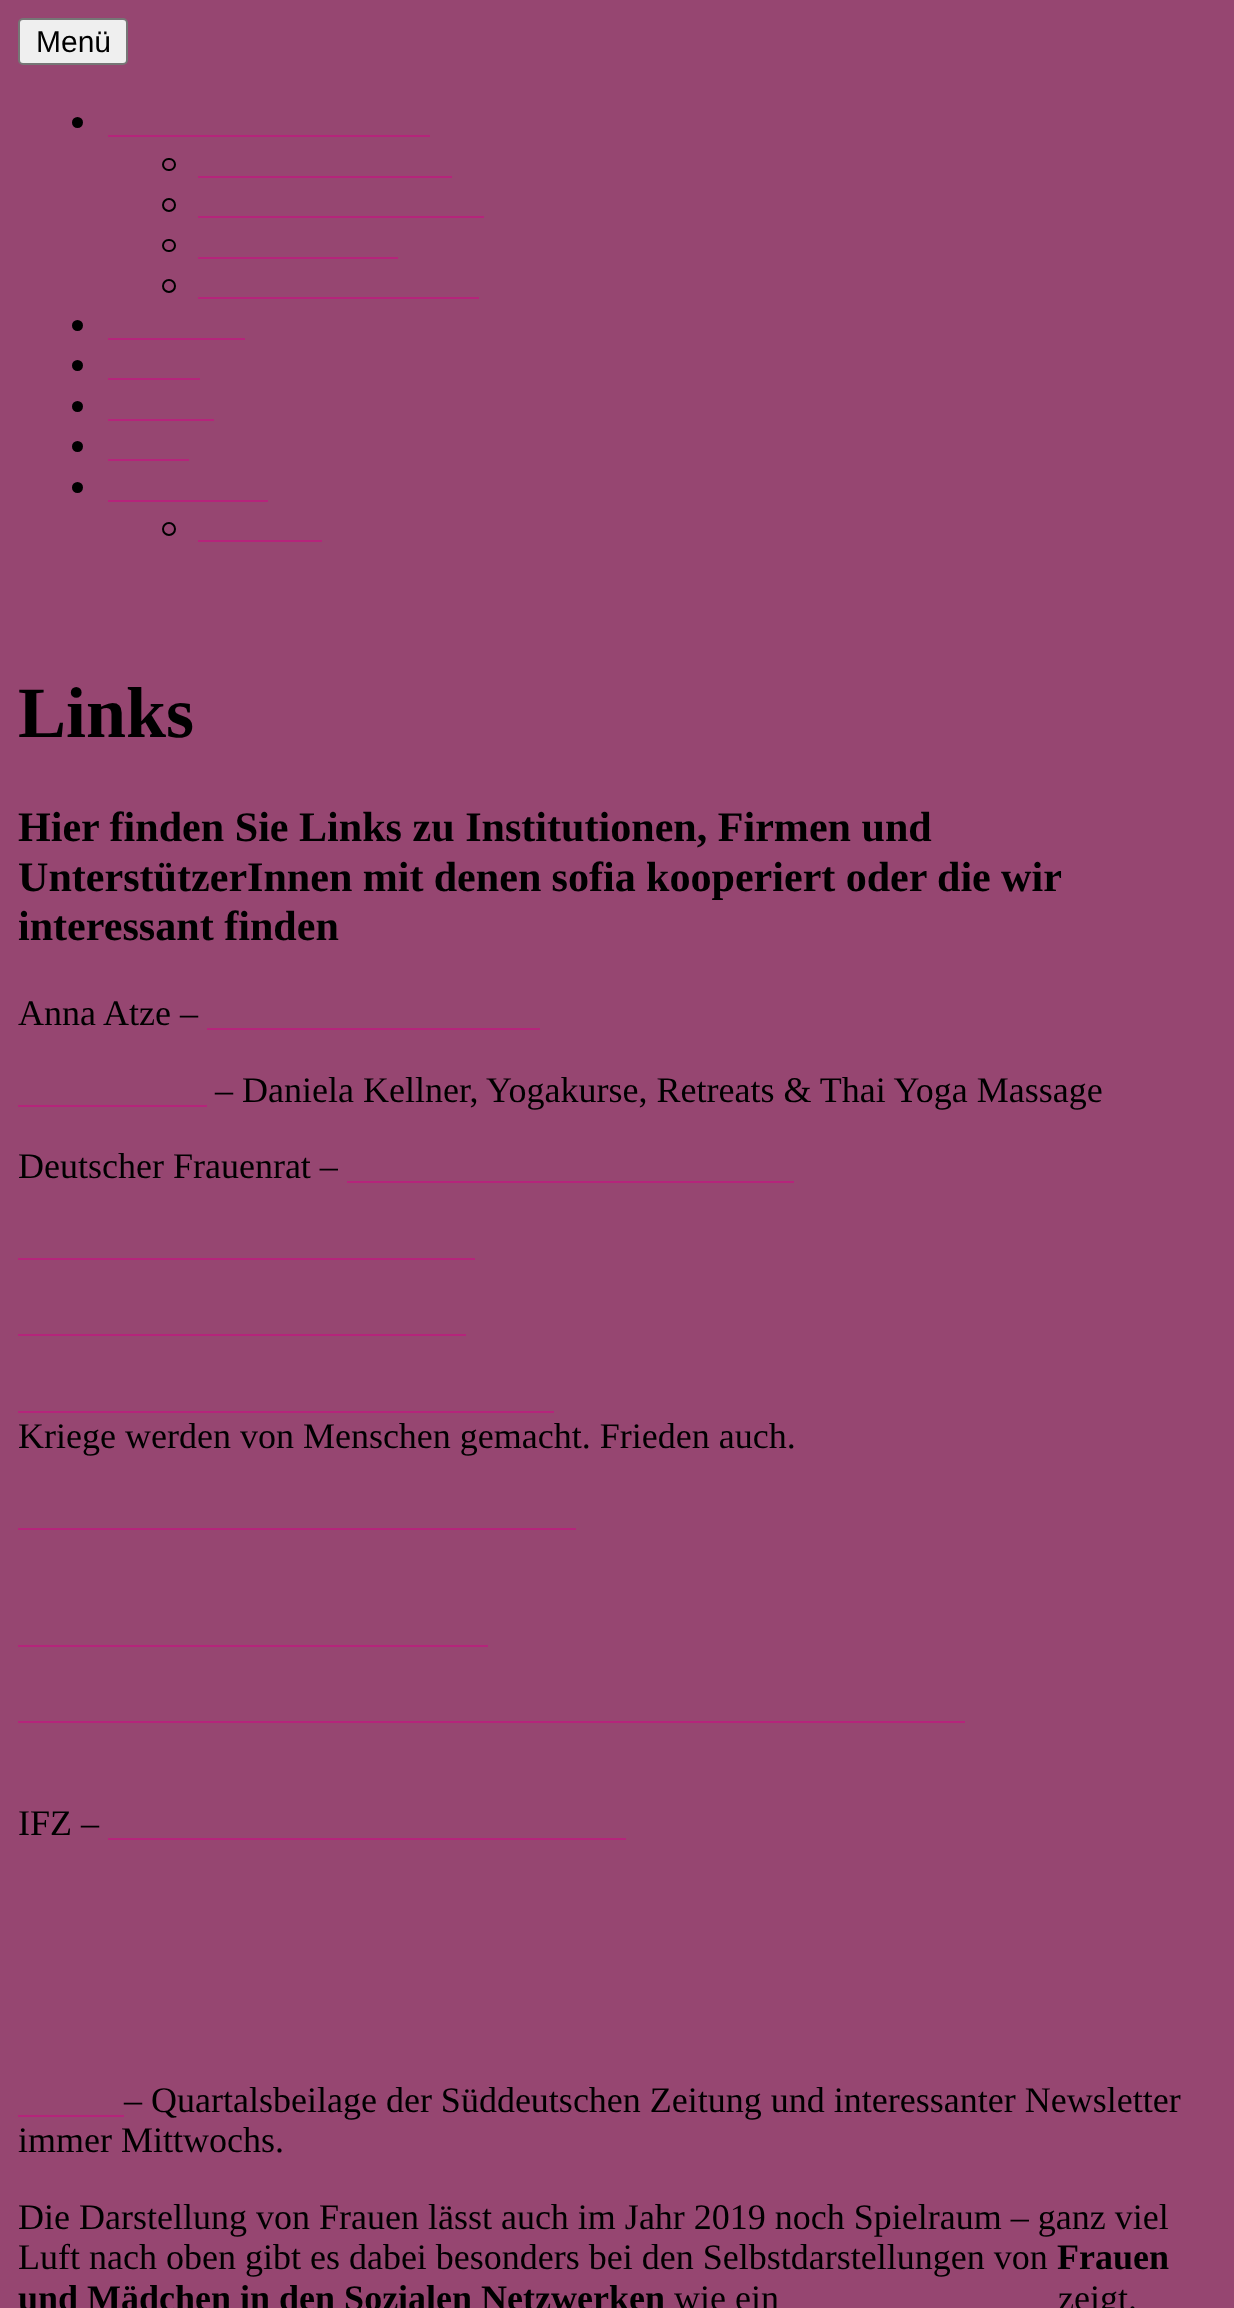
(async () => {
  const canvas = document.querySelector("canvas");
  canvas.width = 1234;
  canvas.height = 2308;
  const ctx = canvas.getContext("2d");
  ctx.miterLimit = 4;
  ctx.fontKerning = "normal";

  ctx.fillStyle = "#964671";
  ctx.fillRect(0, 0, 1234, 2308);
  ctx.fillStyle = "#efefef";
  ctx.beginPath();
  ctx.roundRect(19, 19, 108, 45, 4);
  ctx.fill();
  ctx.strokeStyle = "#767676";
  ctx.lineWidth = 2;
  ctx.stroke();
  ctx.fillStyle = "#000000";
  ctx.beginPath();
  ctx.arc(77.5, 122.5, 5.5, 0, Math.PI * 2);
  ctx.fill();
  ctx.fillStyle = "#b5247b";
  ctx.fillRect(108, 135, 322, 2);
  ctx.beginPath();
  ctx.roundRect(163, 159, 12, 11, 5.5);
  ctx.strokeStyle = "#000000";
  ctx.stroke();
  ctx.fillRect(198, 176, 254, 2);
  ctx.beginPath();
  ctx.arc(169, 205, 6, 0, Math.PI * 2);
  ctx.stroke();
  ctx.fillRect(198, 216, 286, 2);
  ctx.beginPath();
  ctx.roundRect(163, 240, 12, 11, 5.5);
  ctx.stroke();
  ctx.fillRect(198, 257, 200, 2);
  ctx.beginPath();
  ctx.arc(169, 286, 6, 0, Math.PI * 2);
  ctx.stroke();
  ctx.fillRect(198, 297, 281, 2);
  ctx.fillStyle = "#000000";
  ctx.beginPath();
  ctx.arc(77.5, 325.5, 5.5, 0, Math.PI * 2);
  ctx.fill();
  ctx.fillStyle = "#b5247b";
  ctx.fillRect(108, 338, 137, 2);
  ctx.fillStyle = "#000000";
  ctx.beginPath();
  ctx.arc(77.5, 365.5, 5.5, 0, Math.PI * 2);
  ctx.fill();
  ctx.fillStyle = "#b5247b";
  ctx.fillRect(108, 378, 92, 2);
  ctx.fillStyle = "#000000";
  ctx.beginPath();
  ctx.arc(77.5, 406.5, 5.5, 0, Math.PI * 2);
  ctx.fill();
  ctx.fillStyle = "#b5247b";
  ctx.fillRect(108, 419, 106, 2);
  ctx.fillStyle = "#000000";
  ctx.beginPath();
  ctx.arc(77.5, 446.5, 5.5, 0, Math.PI * 2);
  ctx.fill();
  ctx.fillStyle = "#b5247b";
  ctx.fillRect(108, 459, 81, 2);
  ctx.fillStyle = "#000000";
  ctx.beginPath();
  ctx.arc(77.5, 487.5, 5.5, 0, Math.PI * 2);
  ctx.fill();
  ctx.fillStyle = "#b5247b";
  ctx.fillRect(108, 500, 160, 2);
  ctx.beginPath();
  ctx.arc(169, 529, 6, 0, Math.PI * 2);
  ctx.stroke();
  for (const [x, y, w, h, color] of [
    [198, 540, 124, 2, "#b5247b"],
    [207, 1028, 333, 2, "#b5247b"],
    [18, 1105, 189, 2, "#b5247b"],
    [347, 1181, 447, 2, "#b5247b"],
    [18, 1258, 457, 2, "#b5247b"],
    [18, 1334, 448, 2, "#b5247b"],
    [18, 1411, 536, 2, "#b5247b"],
    [18, 1528, 558, 2, "#b5247b"],
    [18, 1645, 470, 2, "#b5247b"],
    [18, 1721, 947, 2, "#b5247b"],
    [108, 1838, 518, 2, "#b5247b"],
    [18, 2115, 106, 2, "#b5247b"],
  ]) {
    ctx.fillStyle = color;
    ctx.fillRect(x, y, w, h);
  }
  ctx.font = "30px Liberation Sans";
  ctx.fillStyle = "#000000";
  ctx.fillText("Menü", 36, 52);
  ctx.font = "bold 72px Liberation Serif";
  ctx.fillText("Links", 18, 737);
  ctx.font = "bold 42.1px Liberation Serif";
  ctx.fillText("Hier finden Sie Links zu Institutionen, Firmen und", 18, 841);
  ctx.wordSpacing = "-0.25px";
  ctx.fillText("UnterstützerInnen mit denen sofia kooperiert oder die wir", 18, 891);
  ctx.wordSpacing = "0px";
  ctx.fillText("interessant finden", 18, 940);
  ctx.font = "36px Liberation Serif";
  for (const [text, x, y] of [
    ["Anna Atze –", 18, 1025],
    ["– Daniela Kellner, Yogakurse, Retreats & Thai Yoga Massage", 215, 1102],
    ["Deutscher Frauenrat –", 18, 1178],
    ["Kriege werden von Menschen gemacht. Frieden auch.", 18, 1448],
    ["IFZ –", 18, 1835],
    ["– Quartalsbeilage der Süddeutschen Zeitung und interessanter Newsletter", 124, 2112],
    ["immer Mittwochs.", 18, 2152],
    ["Die Darstellung von Frauen lässt auch im Jahr 2019 noch Spielraum – ganz viel", 18, 2229],
    ["Luft nach oben gibt es dabei besonders bei den Selbstdarstellungen von", 18, 2269],
  ]) {
    ctx.fillText(text, x, y);
  }
  ctx.font = "bold 36px Liberation Serif";
  ctx.fillText("Frauen", 1057, 2269);
  ctx.fillText("und Mädchen in den Sozialen Netzwerken", 18, 2310);
  ctx.font = "36px Liberation Serif";
  ctx.fillText("wie ein", 674, 2310);
  ctx.fillText("zeigt.", 1058, 2310);
})();
